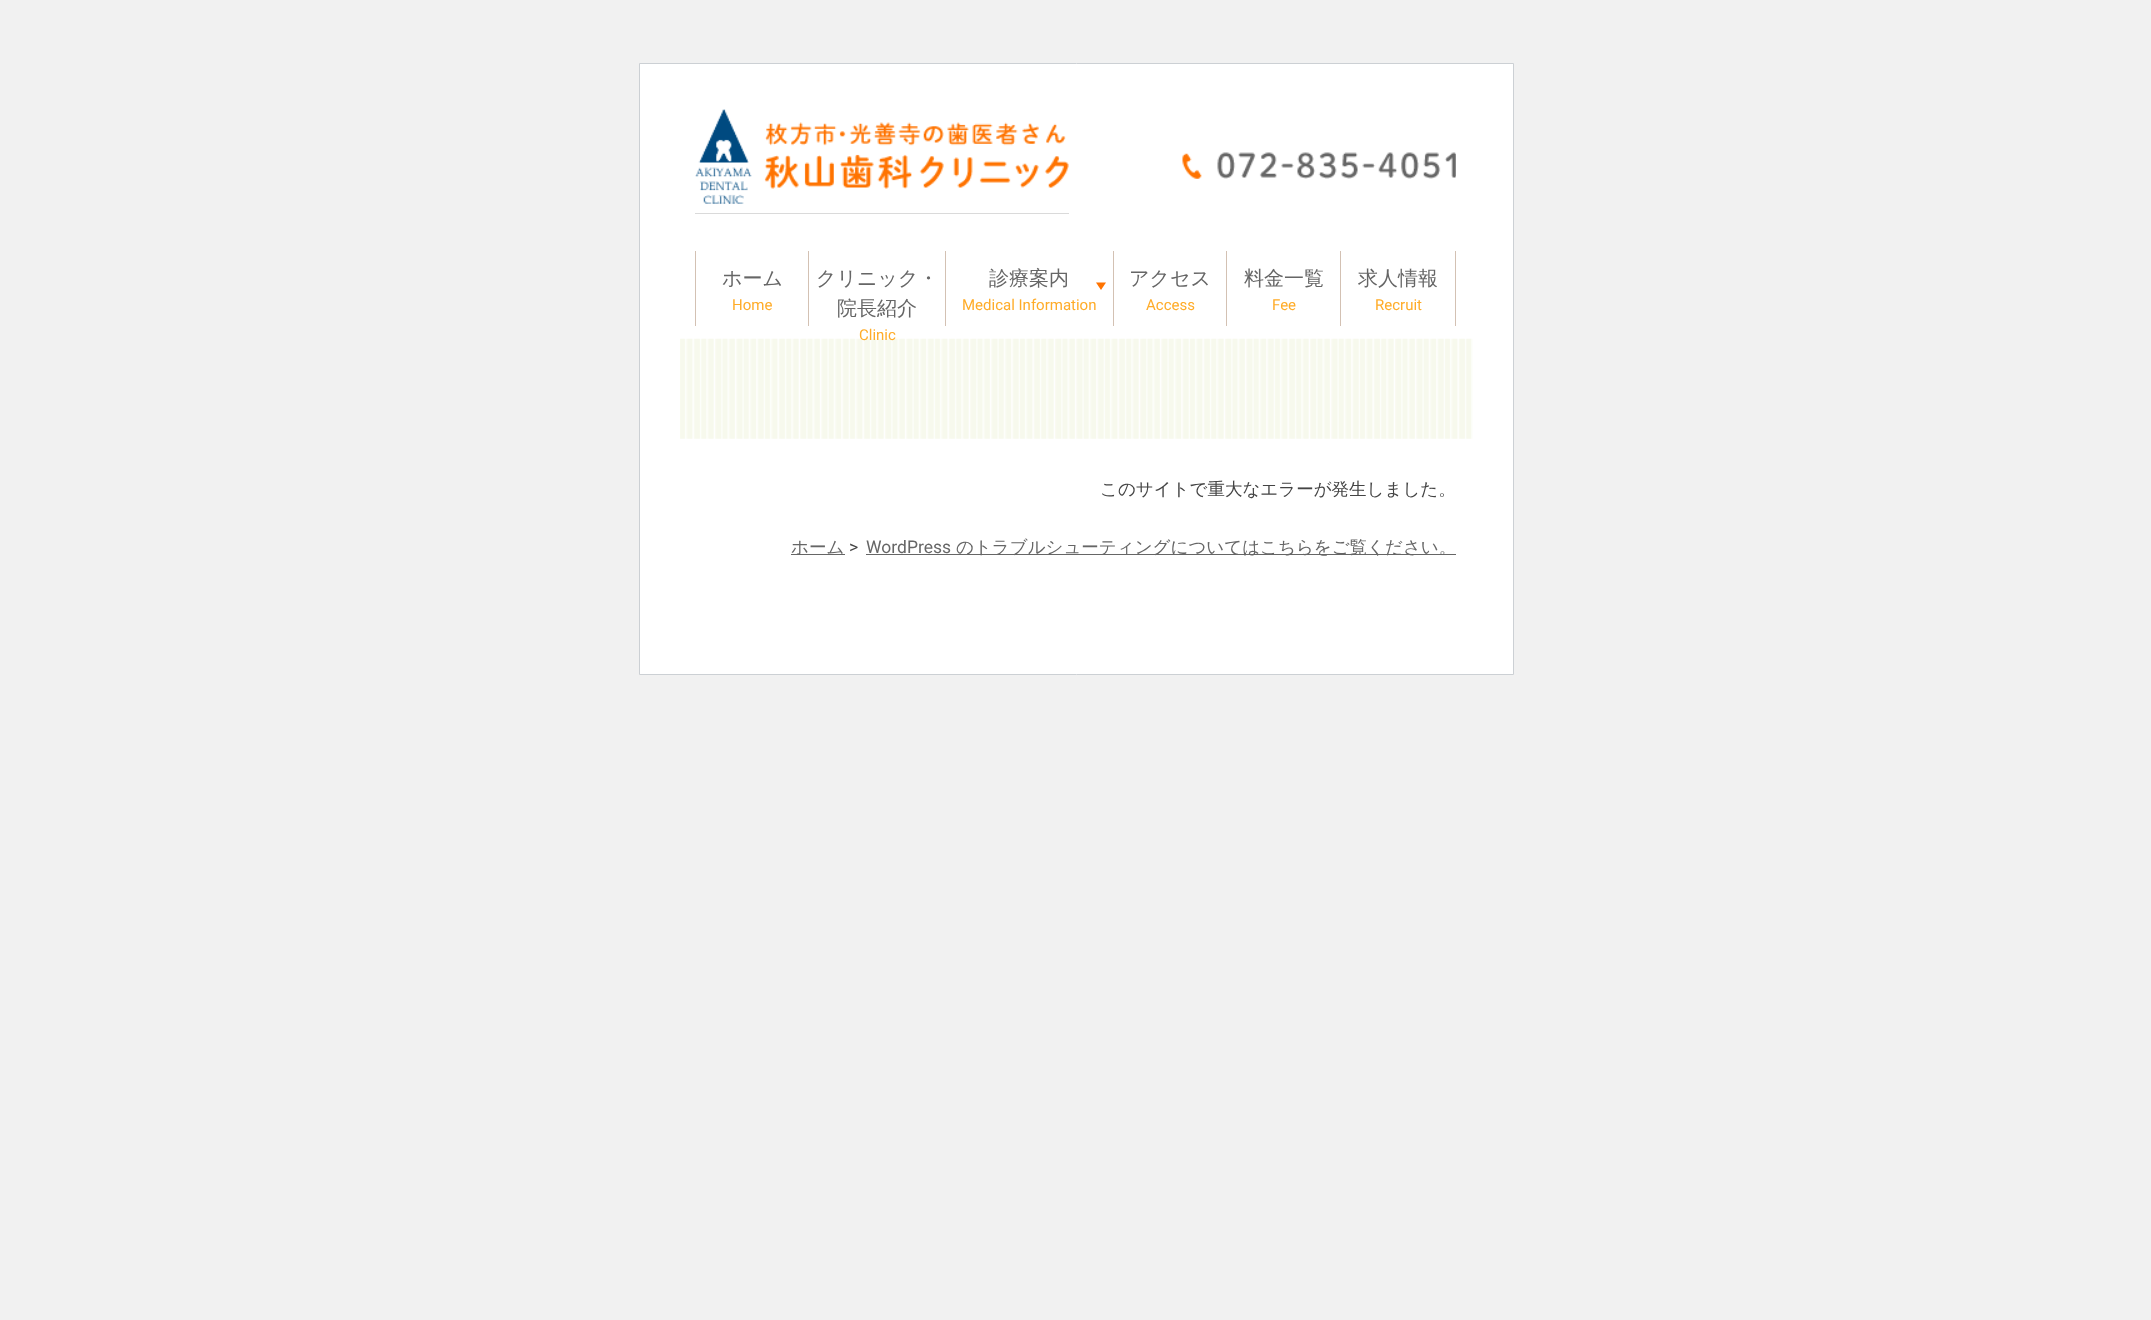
(async () => {
  const canvas = document.querySelector("canvas");
  canvas.width = 2151;
  canvas.height = 1320;
  const ctx = canvas.getContext("2d");
  ctx.miterLimit = 4;
  ctx.fontKerning = "normal";
  async function loadImage(src) {
    const img = new Image();
    img.src = src;
    await img.decode();
    return img;
  }
  let path;

  ctx.fillStyle = "#f1f1f1";
  ctx.fillRect(0, 0, 2151, 1320);
  ctx.fillStyle = "#ffffff";
  ctx.beginPath();
  ctx.rect(639.5, 63.5, 874, 611);
  ctx.fill();
  ctx.strokeStyle = "#ccd0d4";
  ctx.stroke();
  ctx.fillStyle = "#dadada";
  ctx.fillRect(695, 213, 374, 1);
  ctx.drawImage(await loadImage("img/1.png"), 695, 109, 374, 95);
  ctx.drawImage(await loadImage("img/2.png"), 1182, 152, 274, 27);
  for (const [x, y, w, h, color] of [
    [808, 251, 1, 75, "#d3c1b3"],
    [695, 251, 1, 75, "#d3c1b3"],
    [945, 251, 1, 75, "#d3c1b3"],
    [1113, 251, 1, 75, "#d3c1b3"],
  ]) {
    ctx.fillStyle = color;
    ctx.fillRect(x, y, w, h);
  }
  ctx.fillStyle = "#ff7300";
  path = new Path2D("M1096 282.5H1106L1101 290Z");
  ctx.fill(path);
  for (const [x, y, w, h, color] of [
    [1226, 251, 1, 75, "#d3c1b3"],
    [1340, 251, 1, 75, "#d3c1b3"],
    [1455, 251, 1, 75, "#d3c1b3"],
  ]) {
    ctx.fillStyle = color;
    ctx.fillRect(x, y, w, h);
  }
  ctx.drawImage(await loadImage("img/3.png"), 680, 338, 793, 101);
  ctx.fillStyle = "#666666";
  ctx.fillRect(791, 554, 54, 1);
  ctx.fillRect(866, 554, 590, 1);
  ctx.font = "500 20px WenQuanYi Zen Hei";
  ctx.fillText("ホーム", 722, 285);
  ctx.font = "15px Roboto";
  ctx.fillStyle = "#ffac29";
  ctx.fillText("Home", 732, 310);
  ctx.font = "500 20px WenQuanYi Zen Hei";
  ctx.fillStyle = "#666666";
  ctx.fillText("クリニック・", 816, 285);
  ctx.fillText("院長紹介", 837, 315);
  ctx.font = "15px Roboto";
  ctx.fillStyle = "#ffac29";
  ctx.fillText("Clinic", 859, 340);
  ctx.font = "500 20px WenQuanYi Zen Hei";
  ctx.fillStyle = "#666666";
  ctx.fillText("診療案内", 989, 285);
  ctx.font = "15px Roboto";
  ctx.fillStyle = "#ffac29";
  ctx.fillText("Medical Information", 962, 310);
  ctx.font = "500 20px WenQuanYi Zen Hei";
  ctx.fillStyle = "#666666";
  ctx.fillText("アクセス", 1129, 285);
  ctx.font = "15px Roboto";
  ctx.fillStyle = "#ffac29";
  ctx.fillText("Access", 1146, 310);
  ctx.font = "500 20px WenQuanYi Zen Hei";
  ctx.fillStyle = "#666666";
  ctx.fillText("料金一覧", 1244, 285);
  ctx.font = "15px Roboto";
  ctx.fillStyle = "#ffac29";
  ctx.fillText("Fee", 1272, 310);
  ctx.font = "500 20px WenQuanYi Zen Hei";
  ctx.fillStyle = "#666666";
  ctx.fillText("求人情報", 1358, 285);
  ctx.font = "15px Roboto";
  ctx.fillStyle = "#ffac29";
  ctx.fillText("Recruit", 1375, 310);
  ctx.font = "500 17.5px WenQuanYi Zen Hei";
  ctx.fillStyle = "#666666";
  ctx.fillText("ホーム", 791, 553);
  ctx.font = "17.5px Roboto";
  ctx.fillStyle = "#444444";
  ctx.fillText(">", 849, 553);
  ctx.font = "500 17.5px WenQuanYi Zen Hei";
  ctx.fillText("このサイトで重大なエラーが発生しました。", 1100, 495);
  ctx.font = "17.5px Roboto";
  ctx.fillStyle = "#666666";
  ctx.fillText("WordPress", 866, 553);
  ctx.font = "500 17.5px WenQuanYi Zen Hei";
  ctx.fillText("のトラブルシューティングについてはこちらをご覧ください。", 956, 553);
})();
